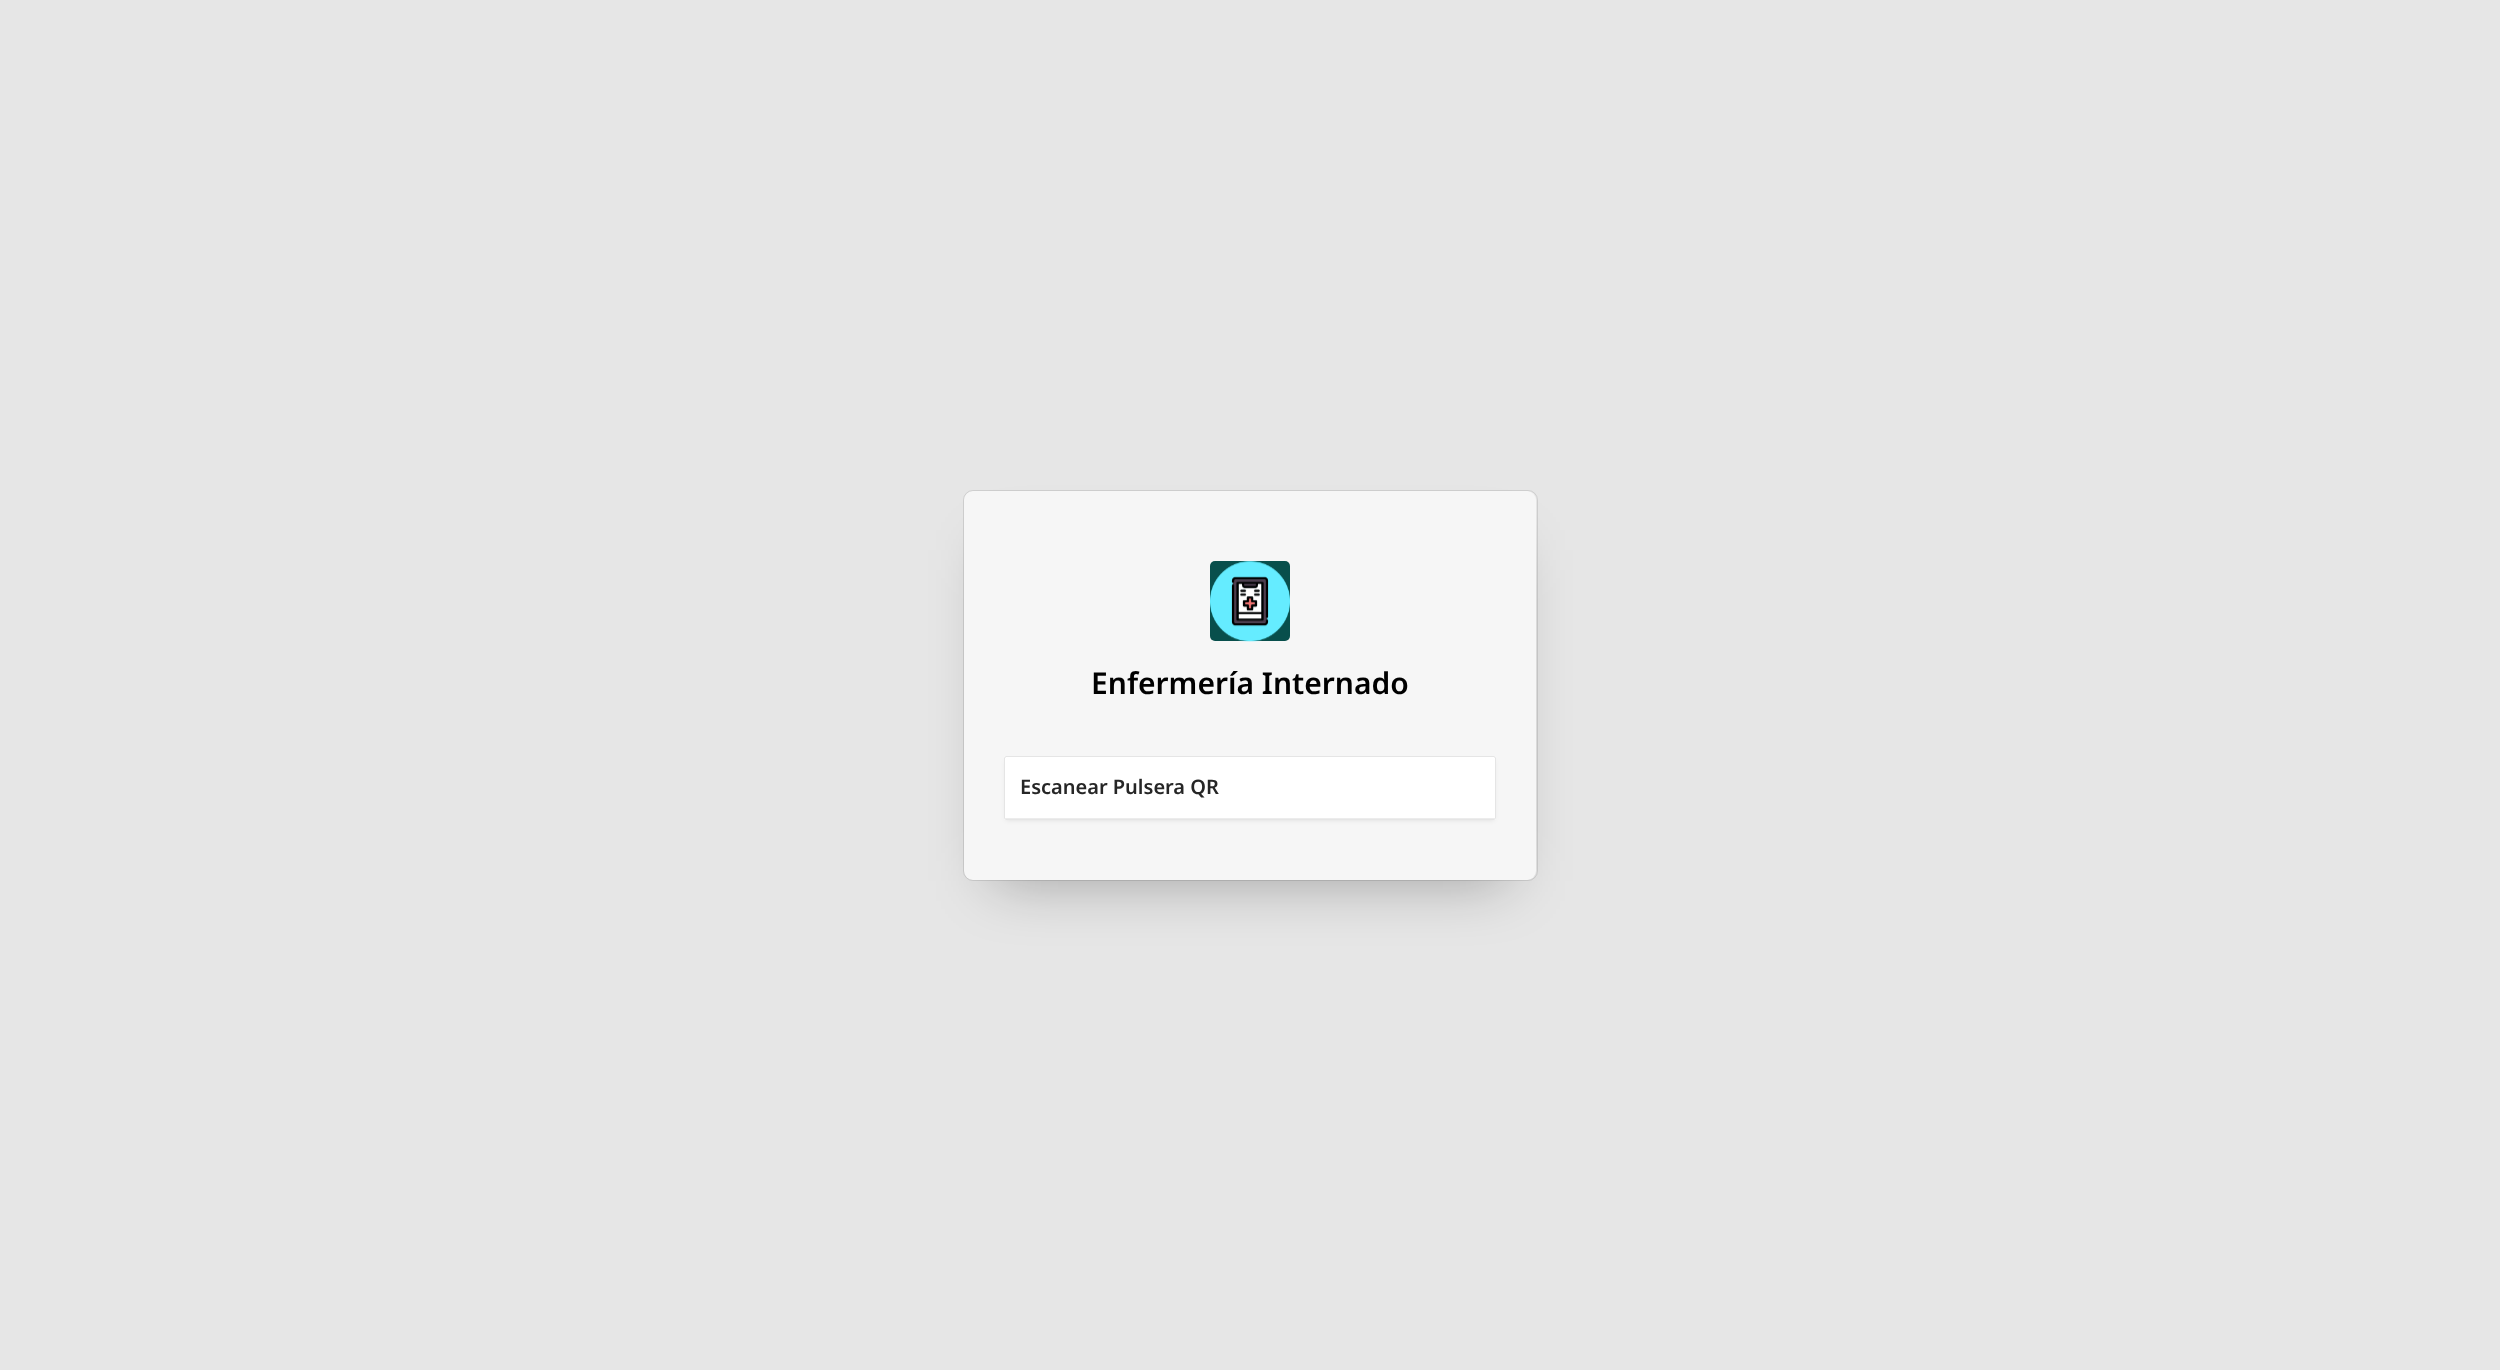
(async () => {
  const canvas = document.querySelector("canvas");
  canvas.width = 2500;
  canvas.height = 1370;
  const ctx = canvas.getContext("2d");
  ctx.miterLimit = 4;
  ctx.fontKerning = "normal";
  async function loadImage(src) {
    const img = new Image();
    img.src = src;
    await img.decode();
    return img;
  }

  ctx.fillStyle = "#e6e6e6";
  ctx.fillRect(0, 0, 2500, 1370);
  ctx.fillStyle = "rgba(0, 0, 0, 0.3)";
  ctx.filter = "blur(30px)";
  ctx.beginPath();
  ctx.rect(993, 550, 515, 331);
  ctx.fill();
  ctx.filter = "none";
  ctx.fillStyle = "#f6f6f6";
  ctx.beginPath();
  ctx.roundRect(964, 491, 572, 389, 9);
  ctx.fill();
  ctx.beginPath();
  ctx.roundRect(963.5, 490.5, 574, 390, 9.5);
  ctx.strokeStyle = "rgba(0, 0, 0, 0.1)";
  ctx.stroke();
  ctx.fillStyle = "#084f4c";
  ctx.beginPath();
  ctx.roundRect(1210, 561, 80, 80, 5);
  ctx.fill();
  ctx.drawImage(await loadImage("img/1.png"), 1210, 561, 80, 81);
  ctx.fillStyle = "rgba(0, 0, 0, 0.1)";
  ctx.filter = "blur(2.5px)";
  ctx.beginPath();
  ctx.rect(1006, 761, 488, 59);
  ctx.fill();
  ctx.filter = "none";
  ctx.fillStyle = "#ffffff";
  ctx.beginPath();
  ctx.roundRect(1004, 756, 492, 64, 2.5);
  ctx.fill();
  ctx.beginPath();
  ctx.roundRect(1004.5, 756.5, 491, 63, 2);
  ctx.stroke();
  ctx.beginPath();
  ctx.roundRect(1005, 758, 490, 61, [2.5, 2.5, 0, 0]);
  ctx.fill();
  ctx.fillStyle = "#ececec";
  ctx.fillRect(1005, 818, 490, 1);
  ctx.font = "600 30px Noto Sans";
  ctx.fillStyle = "#000000";
  ctx.fillText("Enfermería Internado", 1091, 694);
  ctx.font = "600 20px Noto Sans";
  ctx.fillStyle = "#262626";
  ctx.fillText("Escanear Pulsera QR", 1020, 794);
})();
